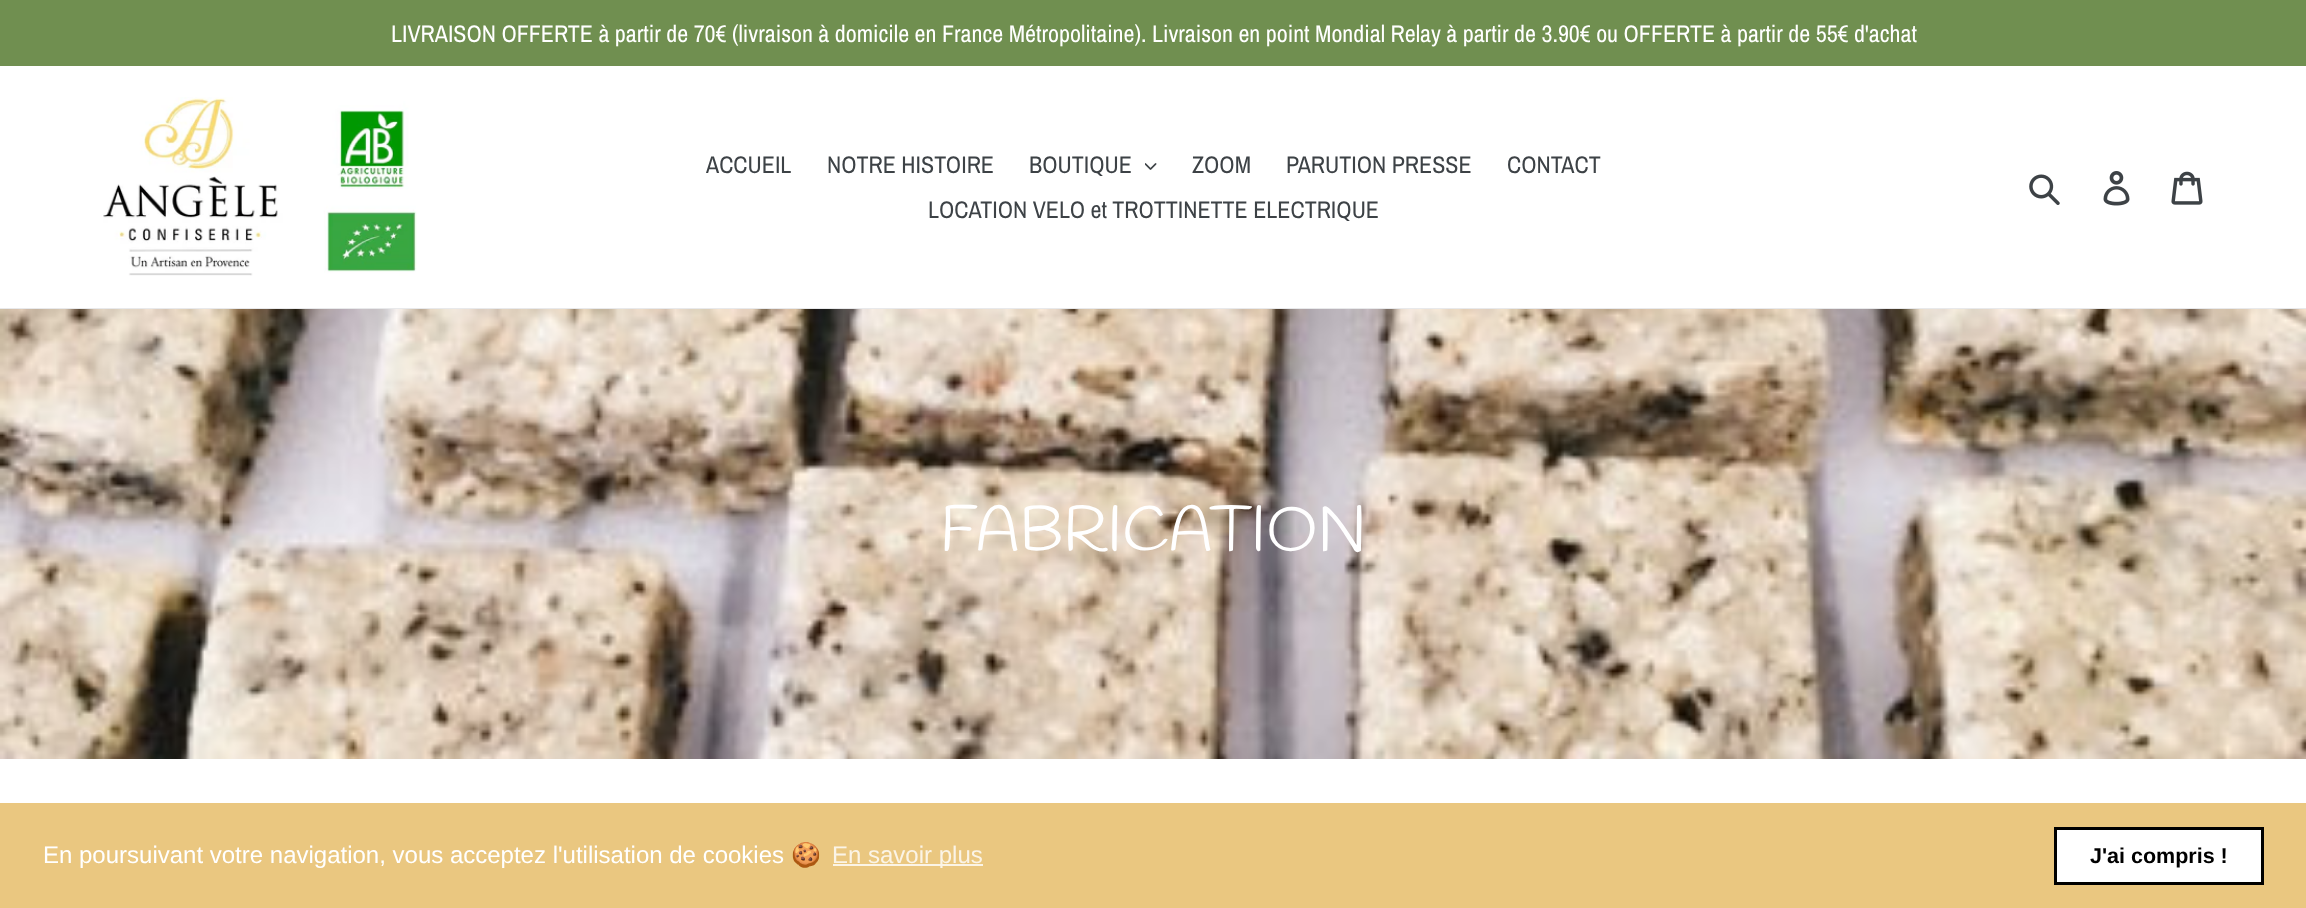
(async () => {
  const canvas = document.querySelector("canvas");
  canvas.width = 2306;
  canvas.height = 908;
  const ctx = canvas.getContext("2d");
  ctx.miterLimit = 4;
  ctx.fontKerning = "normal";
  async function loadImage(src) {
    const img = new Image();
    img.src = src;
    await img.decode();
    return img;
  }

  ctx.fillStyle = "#ffffff";
  ctx.fillRect(0, 0, 2306, 908);
  ctx.fillStyle = "#708f50";
  ctx.fillRect(0, 0, 2306, 66);
  ctx.fillStyle = "#e8e9eb";
  ctx.fillRect(0, 308, 2306, 1);
  ctx.drawImage(await loadImage("img/1.png"), 103, 97, 314, 179);
  ctx.drawImage(await loadImage("img/2.png"), 1145, 163, 12, 7);
  ctx.drawImage(await loadImage("img/3.png"), 2029, 174, 31, 31);
  ctx.drawImage(await loadImage("img/4.png"), 2103, 171, 27, 35);
  ctx.drawImage(await loadImage("img/5.png"), 2171, 171, 32, 34);
  ctx.drawImage(await loadImage("img/6.png"), 0, 309, 2306, 450);
  ctx.fillStyle = "#eac780";
  ctx.fillRect(0, 803, 2306, 105);
  ctx.fillStyle = "#fbf4e6";
  ctx.fillRect(833, 864, 150, 2);
  ctx.fillStyle = "#ffffff";
  ctx.beginPath();
  ctx.rect(2055.5, 828.5, 207, 55);
  ctx.fill();
  ctx.strokeStyle = "#000000";
  ctx.lineWidth = 3;
  ctx.stroke();
  ctx.font = "24px Archivo Narrow";
  ctx.fillText("LIVRAISON OFFERTE à partir de 70€ (livraison à domicile en France Métropolitaine). Livraison en point Mondial Relay à partir de 3.90€ ou OFFERTE à partir de 55€ d'achat", 391, 42);
  ctx.fillStyle = "#3d4246";
  for (const [text, x, y] of [
    ["ACCUEIL", 706, 173],
    ["NOTRE HISTOIRE", 827, 173],
    ["BOUTIQUE", 1029, 173],
    ["ZOOM", 1192, 173],
    ["PARUTION PRESSE", 1286, 173],
    ["CONTACT", 1507, 173],
    ["LOCATION VELO et TROTTINETTE ELECTRIQUE", 928, 218],
  ]) {
    ctx.fillText(text, x, y);
  }
  ctx.font = "63px Handlee";
  ctx.fillStyle = "#ffffff";
  ctx.fillText("FABRICATION", 940, 550);
  ctx.font = "24px Liberation Sans";
  ctx.fillText("En poursuivant votre navigation, vous acceptez l'utilisation de cookies", 43, 863);
  ctx.font = "24px Noto Color Emoji";
  ctx.fillText("🍪", 791, 863);
  ctx.font = "24px Liberation Sans";
  ctx.fillStyle = "#fbf4e6";
  ctx.fillText("En savoir plus", 832, 863);
  ctx.font = "bold 21.5px Liberation Sans";
  ctx.fillStyle = "#000000";
  ctx.fillText("J'ai compris !", 2090, 863);
})();
